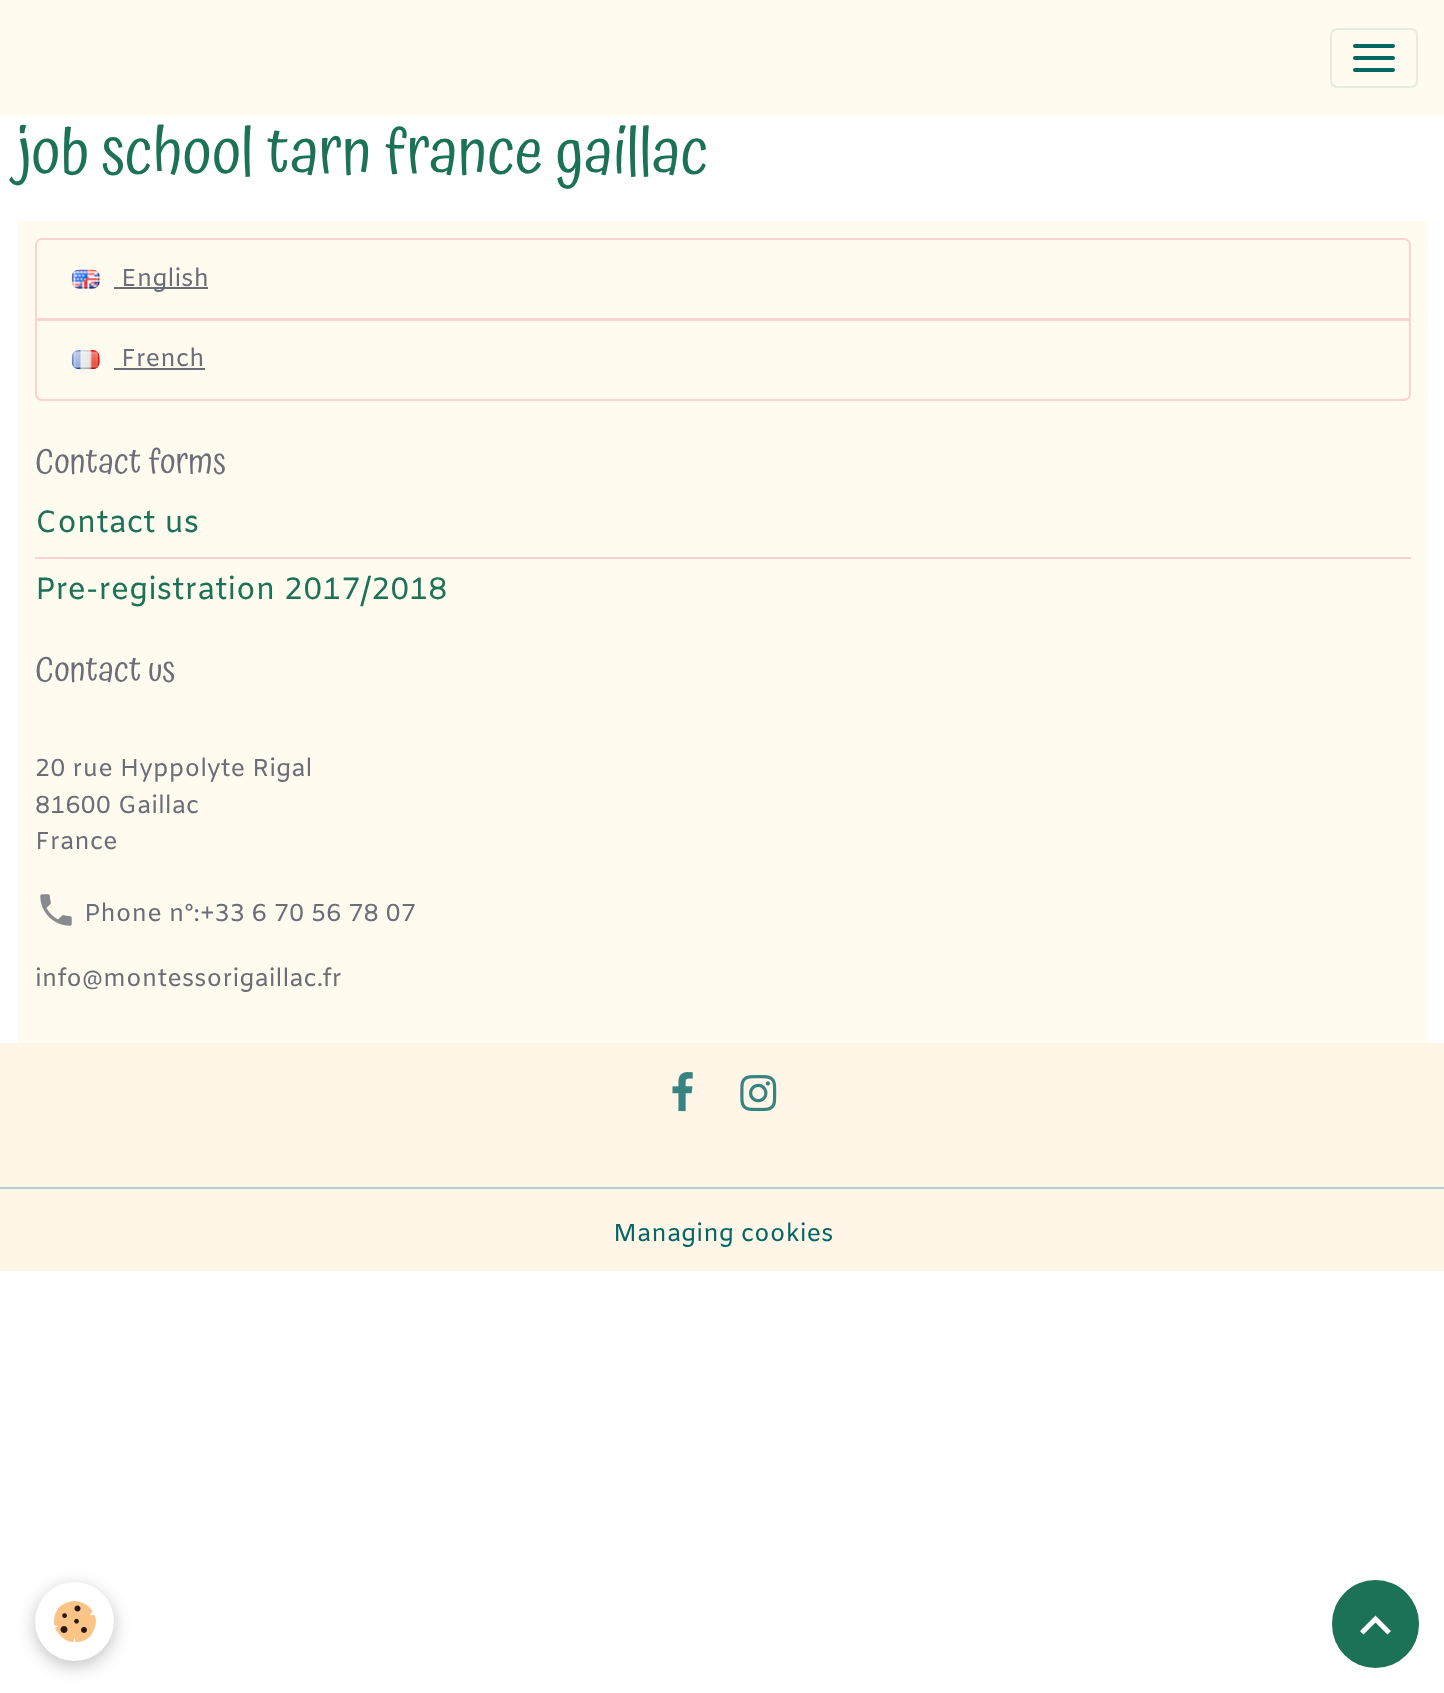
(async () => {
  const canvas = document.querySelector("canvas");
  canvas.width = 1444;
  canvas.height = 1693;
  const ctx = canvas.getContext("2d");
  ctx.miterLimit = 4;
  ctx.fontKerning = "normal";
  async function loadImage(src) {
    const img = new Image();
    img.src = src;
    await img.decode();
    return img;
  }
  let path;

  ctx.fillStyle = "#ffffff";
  ctx.fillRect(0, 0, 1444, 1693);
  ctx.fillStyle = "#fffbee";
  ctx.fillRect(0, 0, 1444, 116);
  ctx.beginPath();
  ctx.roundRect(1331, 29, 86, 58, 6);
  ctx.strokeStyle = "#e6ece0";
  ctx.lineWidth = 2;
  ctx.stroke();
  ctx.fillStyle = "#056666";
  ctx.beginPath();
  ctx.roundRect(1353, 44, 42, 4, 2);
  ctx.fill();
  ctx.beginPath();
  ctx.roundRect(1353, 56, 42, 4, 2);
  ctx.fill();
  ctx.beginPath();
  ctx.roundRect(1353, 68, 42, 4, 2);
  ctx.fill();
  ctx.fillStyle = "#fffbee";
  ctx.fillRect(18, 221, 1410, 822);
  ctx.beginPath();
  ctx.roundRect(36, 239, 1374, 80, [6, 6, 0, 0]);
  ctx.strokeStyle = "#ffd1d5";
  ctx.stroke();
  ctx.drawImage(await loadImage("img/1.png"), 71, 269, 29, 20);
  ctx.fillStyle = "#6b6e78";
  ctx.fillRect(114, 287, 94, 2);
  ctx.beginPath();
  ctx.roundRect(36, 320, 1374, 80, [0, 0, 6, 6]);
  ctx.stroke();
  ctx.drawImage(await loadImage("img/2.png"), 71, 350, 29, 20);
  ctx.fillRect(114, 368, 91, 2);
  ctx.fillStyle = "#ffd1d5";
  ctx.fillRect(35, 557, 1376, 2);
  ctx.drawImage(await loadImage("img/3.png"), 40, 894, 32, 32);
  ctx.fillStyle = "#fff6e8";
  ctx.fillRect(0, 1043, 1444, 228);
  ctx.drawImage(await loadImage("img/4.png"), 672, 1072, 21, 40);
  ctx.drawImage(await loadImage("img/5.png"), 740, 1075, 37, 37);
  ctx.fillStyle = "#b4d1d1";
  ctx.fillRect(0, 1187, 1444, 2);
  ctx.fillStyle = "rgba(0, 0, 0, 0.24)";
  ctx.filter = "blur(9px)";
  ctx.beginPath();
  ctx.roundRect(35, 1587, 79, 79, 39.5);
  ctx.fill();
  ctx.filter = "none";
  ctx.fillStyle = "#ffffff";
  ctx.beginPath();
  ctx.arc(74.5, 1621.5, 39.5, 0, Math.PI * 2);
  ctx.fill();
  ctx.drawImage(await loadImage("img/6.png"), 53, 1601, 43, 42);
  ctx.fillStyle = "#1c7257";
  ctx.beginPath();
  ctx.roundRect(1332, 1580, 87, 88, 43.5);
  ctx.fill();
  ctx.fillStyle = "#ffffff";
  path = new Path2D("M1375.5 1615.5L1391 1631L1387.5 1634.5L1375.5 1622.5L1363.5 1634.5L1360 1631Z");
  ctx.fill(path);
  ctx.font = "64.4px Atma";
  ctx.fillStyle = "#1c7257";
  ctx.fillText("job school tarn france gaillac", 18, 173);
  ctx.font = "24.5px Amiko";
  ctx.fillStyle = "#6b6e78";
  ctx.fillText("English", 121, 286);
  ctx.fillText("French", 121, 366);
  ctx.font = "35px Atma";
  ctx.fillText("Contact forms", 35, 473);
  ctx.font = "30.75px Amiko";
  ctx.fillStyle = "#1c7257";
  ctx.fillText("Contact us", 35, 532);
  ctx.fillText("Pre-registration 2017/2018", 35, 599);
  ctx.font = "35px Atma";
  ctx.fillStyle = "#6b6e78";
  ctx.fillText("Contact us", 35, 681);
  ctx.font = "24.5px Amiko";
  for (const [text, x, y] of [
    ["20 rue Hyppolyte Rigal", 35, 776],
    ["81600 Gaillac", 35, 813],
    ["France", 35, 849],
    ["Phone n°:+33 6 70 56 78 07", 84, 921],
    ["info@montessorigaillac.fr", 35, 986],
  ]) {
    ctx.fillText(text, x, y);
  }
  ctx.fillStyle = "#056666";
  ctx.fillText("Managing cookies", 613, 1241);
})();
